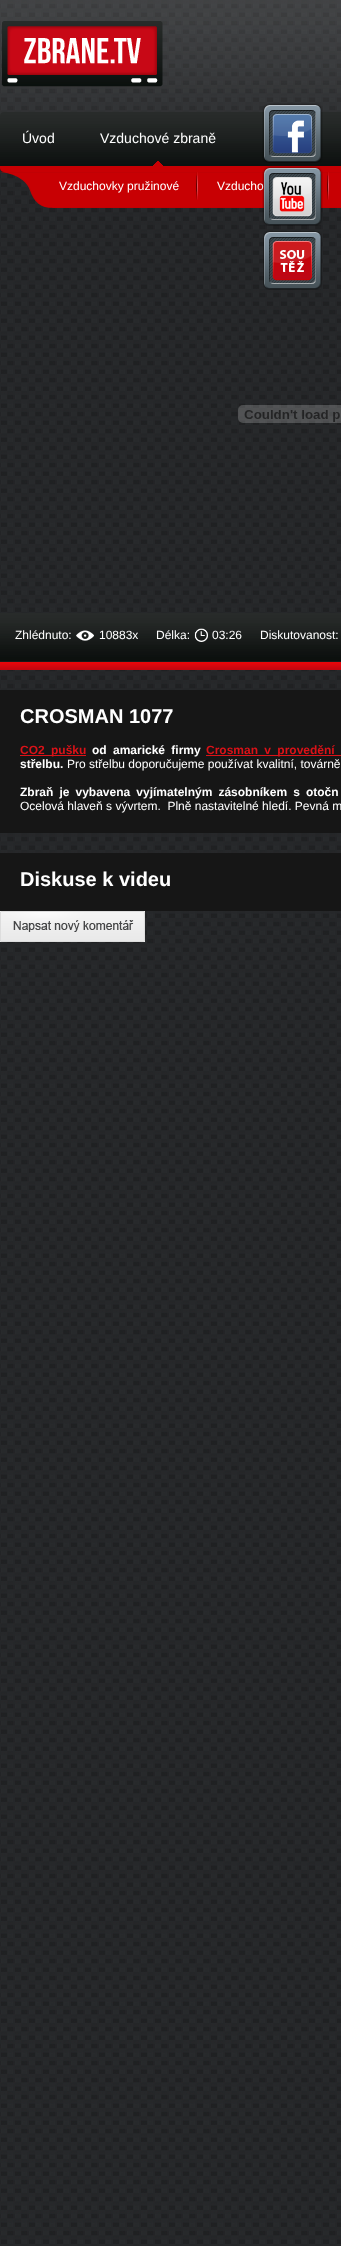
(async () => {
  const canvas = document.querySelector("canvas");
  canvas.width = 341;
  canvas.height = 2246;
  const ctx = canvas.getContext("2d");
  ctx.miterLimit = 4;
  ctx.fontKerning = "normal";
  async function loadImage(src) {
    const img = new Image();
    img.src = src;
    await img.decode();
    return img;
  }

  ctx.fillStyle = "#ffffff";
  ctx.fillRect(0, 0, 341, 2246);
  ctx.drawImage(await loadImage("img/1.png"), 0, 0, 341, 2246);
  ctx.drawImage(await loadImage("img/2.png"), 0, 0, 341, 116);
  ctx.drawImage(await loadImage("img/7.png"), 0, 112, 341, 60);
  ctx.drawImage(await loadImage("img/3.png"), 262, 103, 61, 60);
  ctx.drawImage(await loadImage("img/5.png"), 263, 231, 59, 59);
  ctx.drawImage(await loadImage("img/6.png"), 2, 21, 161, 66);
  ctx.drawImage(await loadImage("img/8.png"), 153, 161, 10, 5);
  ctx.drawImage(await loadImage("img/9.png"), 0, 172, 341, 36);
  ctx.drawImage(await loadImage("img/10.png"), 196, 172, 2, 28);
  ctx.drawImage(await loadImage("img/10.png"), 327, 172, 2, 28);
  ctx.drawImage(await loadImage("img/11.png"), 238, 405, 103, 18);
  ctx.drawImage(await loadImage("img/12.png"), 0, 613, 341, 57);
  ctx.drawImage(await loadImage("img/13.png"), 76, 630, 18, 11);
  ctx.drawImage(await loadImage("img/14.png"), 194, 628, 14, 14);
  for (const [x, y, w, h, color] of [
    [0, 690, 341, 143, "#161616"],
    [20, 755, 66, 1, "#dc1218"],
    [206, 755, 135, 1, "#dc1218"],
    [0, 853, 341, 58, "#161616"],
  ]) {
    ctx.fillStyle = color;
    ctx.fillRect(x, y, w, h);
  }
  ctx.drawImage(await loadImage("img/15.png"), 0, 911, 145, 31);
  ctx.font = "14px Liberation Sans";
  ctx.fillStyle = "#ffffff";
  ctx.fillText("Úvod", 22, 143);
  ctx.fillText("Vzduchové zbraně", 100, 143);
  ctx.font = "12px Liberation Sans";
  ctx.fillText("Vzduchovky pružinové", 59, 190);
  ctx.fillText("Vzducho", 217, 190);
  ctx.drawImage(await loadImage("img/4.png"), 262, 166, 61, 60);
  for (const [text, x, y] of [
    ["Zhlédnuto:", 15, 639],
    ["10883x", 99, 639],
    ["Délka:", 156, 639],
    ["03:26", 212, 639],
    ["Diskutovanost:", 260, 639],
  ]) {
    ctx.fillText(text, x, y);
  }
  ctx.font = "bold 20px Liberation Sans";
  ctx.fillText("CROSMAN 1077", 20, 723);
  ctx.wordSpacing = "3px";
  ctx.font = "bold 12px Liberation Sans";
  ctx.fillStyle = "#dc1218";
  ctx.fillText("CO2 pušku", 20, 754);
  ctx.fillStyle = "#ffffff";
  ctx.fillText("od amarické firmy", 92, 754);
  ctx.fillStyle = "#dc1218";
  ctx.fillText("Crosman v provedění", 206, 754);
  ctx.wordSpacing = "0px";
  ctx.fillStyle = "#ffffff";
  ctx.fillText("střelbu.", 20, 768);
  ctx.font = "12px Liberation Sans";
  ctx.fillText("Pro střelbu doporučujeme používat kvalitní, továrně", 67, 768);
  ctx.wordSpacing = "2.75px";
  ctx.font = "bold 12px Liberation Sans";
  ctx.fillText("Zbraň je vybavena vyjímatelným zásobníkem s otočn", 20, 796);
  ctx.wordSpacing = "0px";
  ctx.font = "12px Liberation Sans";
  ctx.fillText("Ocelová hlaveň s vývrtem.  Plně nastavitelné hledí. Pevná m", 20, 810);
  ctx.font = "bold 20px Liberation Sans";
  ctx.fillText("Diskuse k videu", 20, 886);
})();
